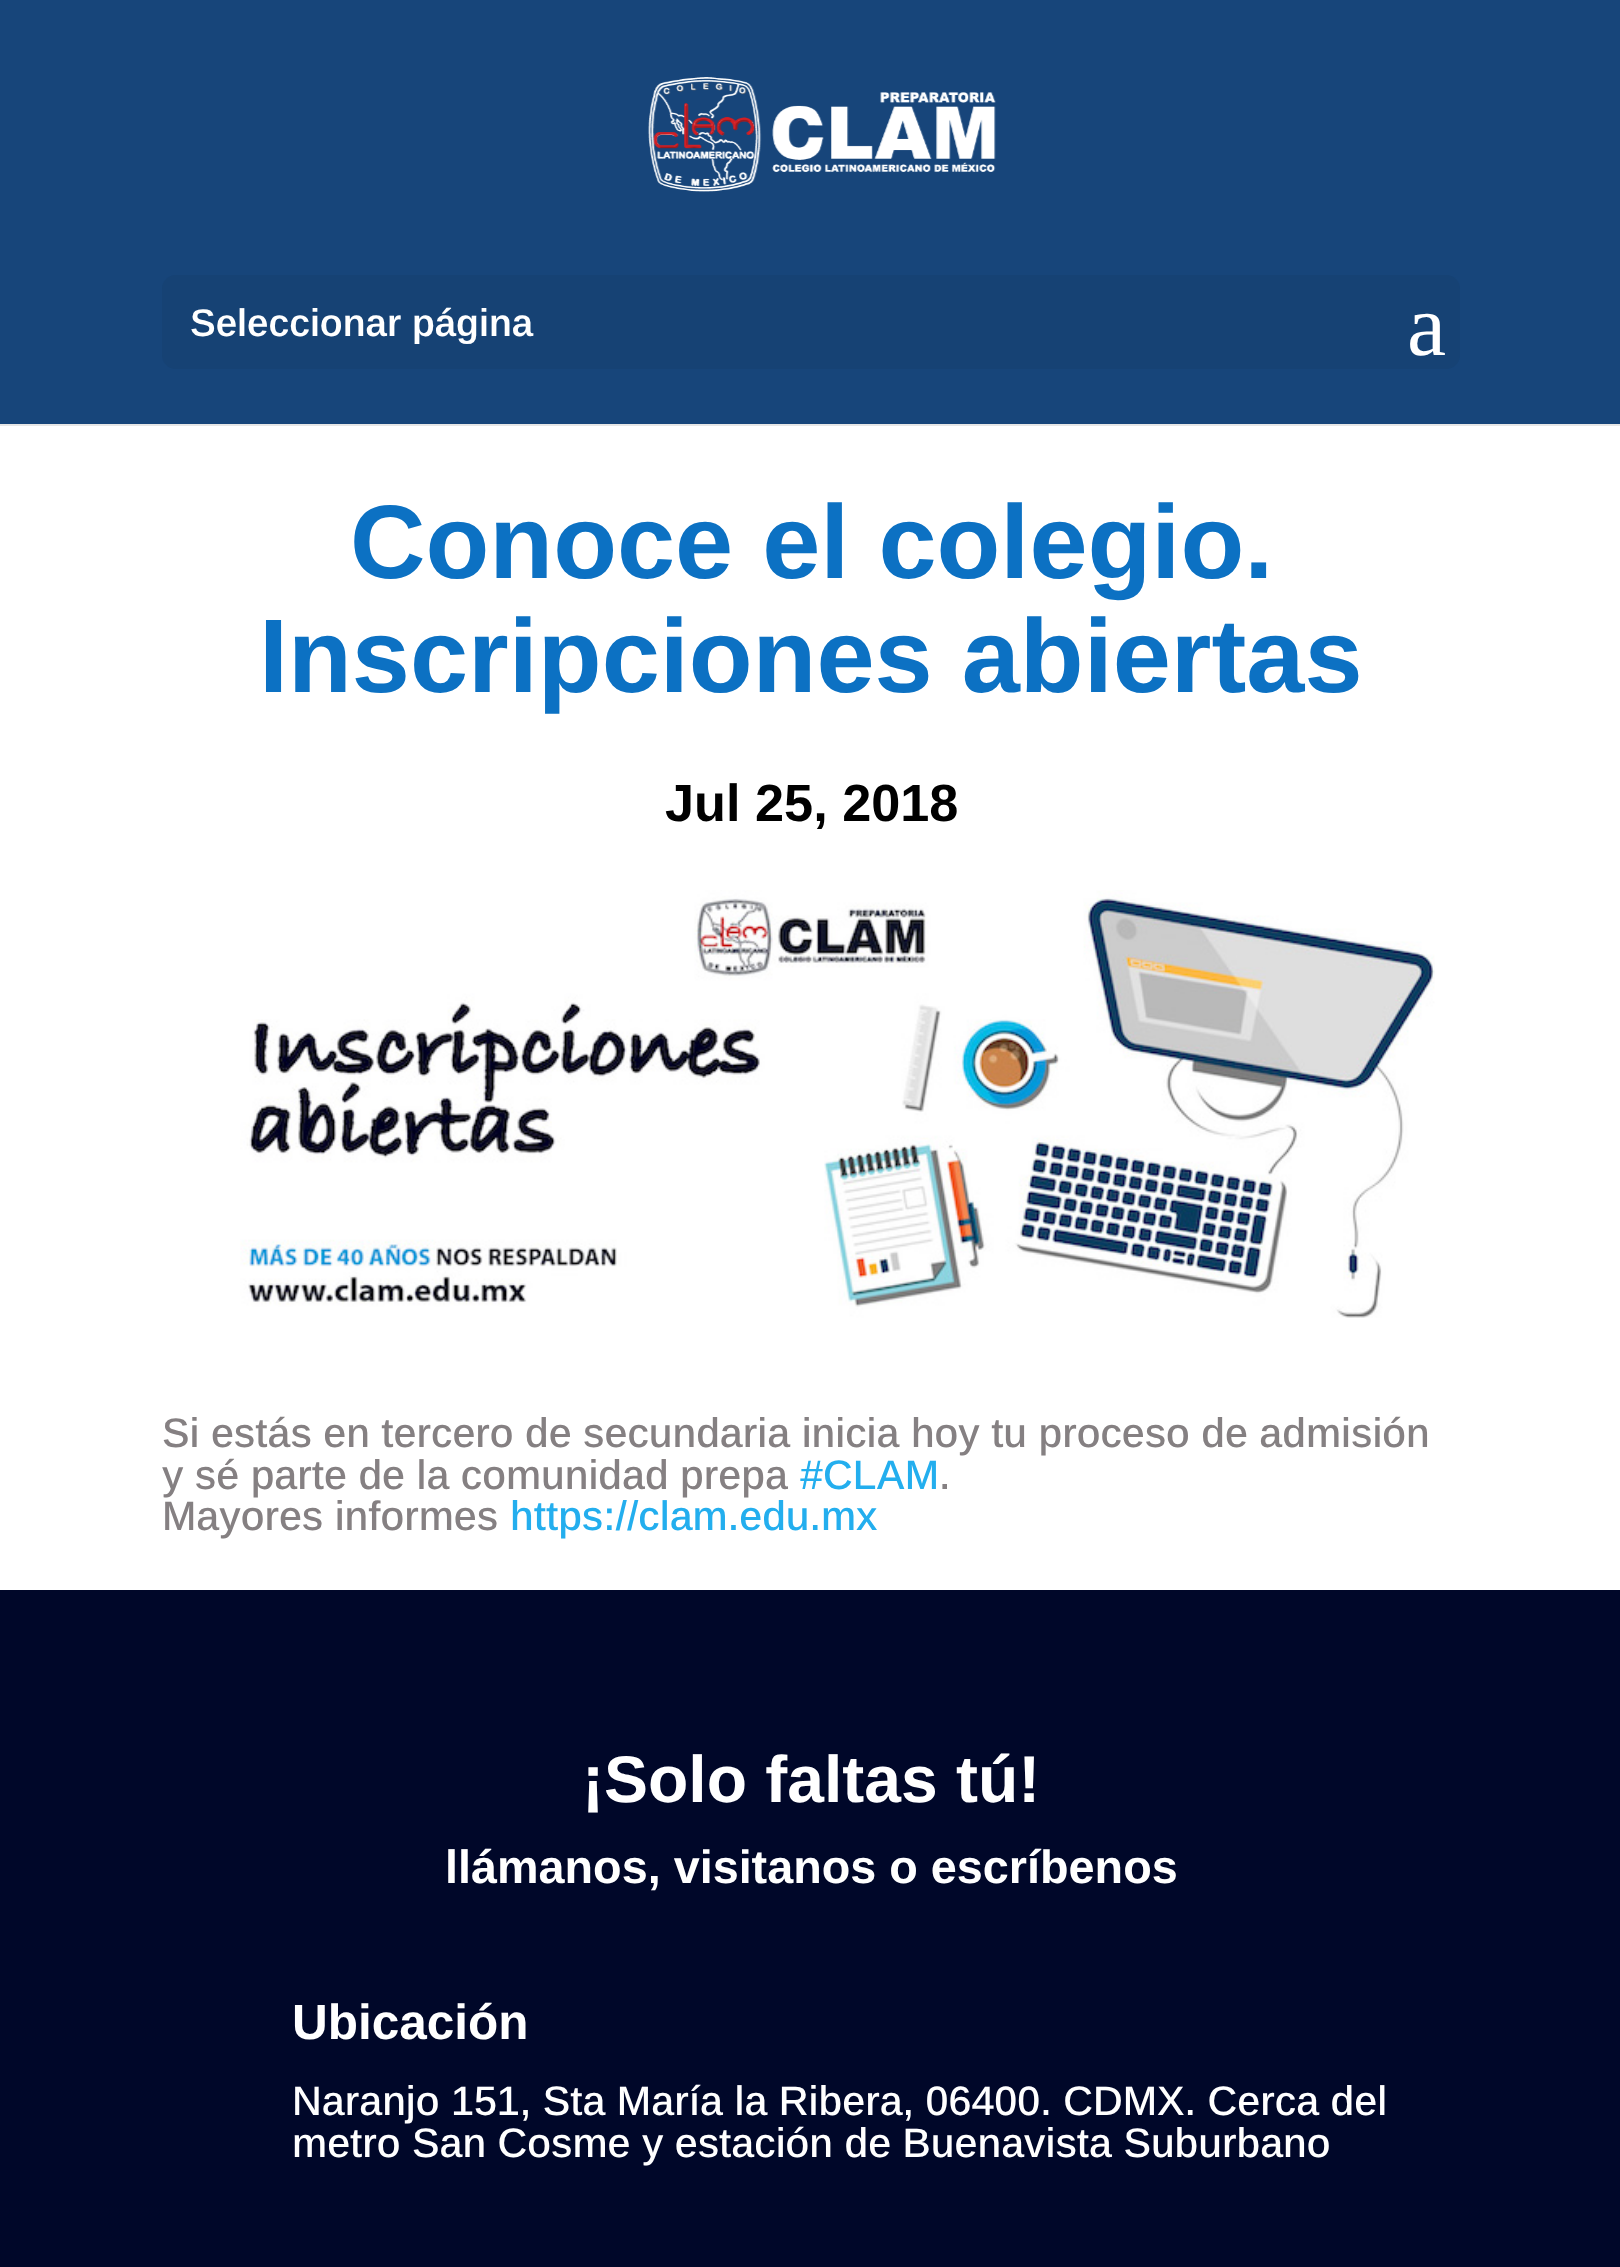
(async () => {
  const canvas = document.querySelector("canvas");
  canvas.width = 1620;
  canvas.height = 2267;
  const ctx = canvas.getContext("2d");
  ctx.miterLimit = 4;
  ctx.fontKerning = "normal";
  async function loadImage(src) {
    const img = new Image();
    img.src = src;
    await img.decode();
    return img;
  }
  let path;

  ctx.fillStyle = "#ffffff";
  ctx.fillRect(0, 0, 1620, 2267);
  ctx.fillStyle = "#e6e6e6";
  path = new Path2D("M0 424V426H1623V3H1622V424Z");
  ctx.fill(path);
  ctx.fillStyle = "#17457a";
  ctx.fillRect(0, 0, 1620, 424);
  ctx.drawImage(await loadImage("img/1.png"), 648, 77, 348, 115);
  ctx.fillStyle = "#164274";
  ctx.beginPath();
  ctx.roundRect(162, 275, 1298, 94, 14);
  ctx.fill();
  ctx.drawImage(await loadImage("img/2.png"), 240, 890, 1195, 428);
  ctx.fillStyle = "#000729";
  ctx.fillRect(0, 1590, 1620, 677);
  ctx.font = "600 38.5px Arimo";
  ctx.fillStyle = "#ffffff";
  ctx.fillText("Seleccionar página", 190, 336);
  ctx.font = "88px Liberation Serif";
  ctx.fillText("a", 1407, 355);
  ctx.font = "bold 104.5px Arimo";
  ctx.fillStyle = "#0c71c3";
  ctx.fillText("Conoce el colegio.", 350, 578);
  ctx.fillText("Inscripciones abiertas", 259, 692);
  ctx.font = "bold 52.25px Arimo";
  ctx.fillStyle = "#000000";
  ctx.fillText("Jul 25, 2018", 665, 821);
  ctx.font = "500 41.25px Arimo";
  ctx.fillStyle = "#858082";
  ctx.fillText("Si estás en tercero de secundaria inicia hoy tu proceso de admisión", 162, 1447);
  ctx.fillText("y sé parte de la comunidad prepa", 162, 1489);
  ctx.fillStyle = "#23aeee";
  ctx.fillText("#CLAM", 800, 1489);
  ctx.fillStyle = "#858082";
  ctx.fillText(".", 939, 1489);
  ctx.fillText("Mayores informes", 162, 1530);
  ctx.fillStyle = "#23aeee";
  ctx.fillText("https://clam.edu.mx", 510, 1530);
  ctx.font = "bold 66px Arimo";
  ctx.fillStyle = "#ffffff";
  ctx.fillText("¡Solo faltas tú!", 582, 1802);
  ctx.font = "bold 46.75px Arimo";
  ctx.fillText("llámanos, visitanos o escríbenos", 445, 1883);
  ctx.font = "bold 49.5px Arimo";
  ctx.fillText("Ubicación", 292, 2039);
  ctx.font = "500 41.25px Arimo";
  ctx.fillText("Naranjo 151, Sta María la Ribera, 06400. CDMX. Cerca del", 292, 2115);
  ctx.fillText("metro San Cosme y estación de Buenavista Suburbano", 292, 2157);
})();
